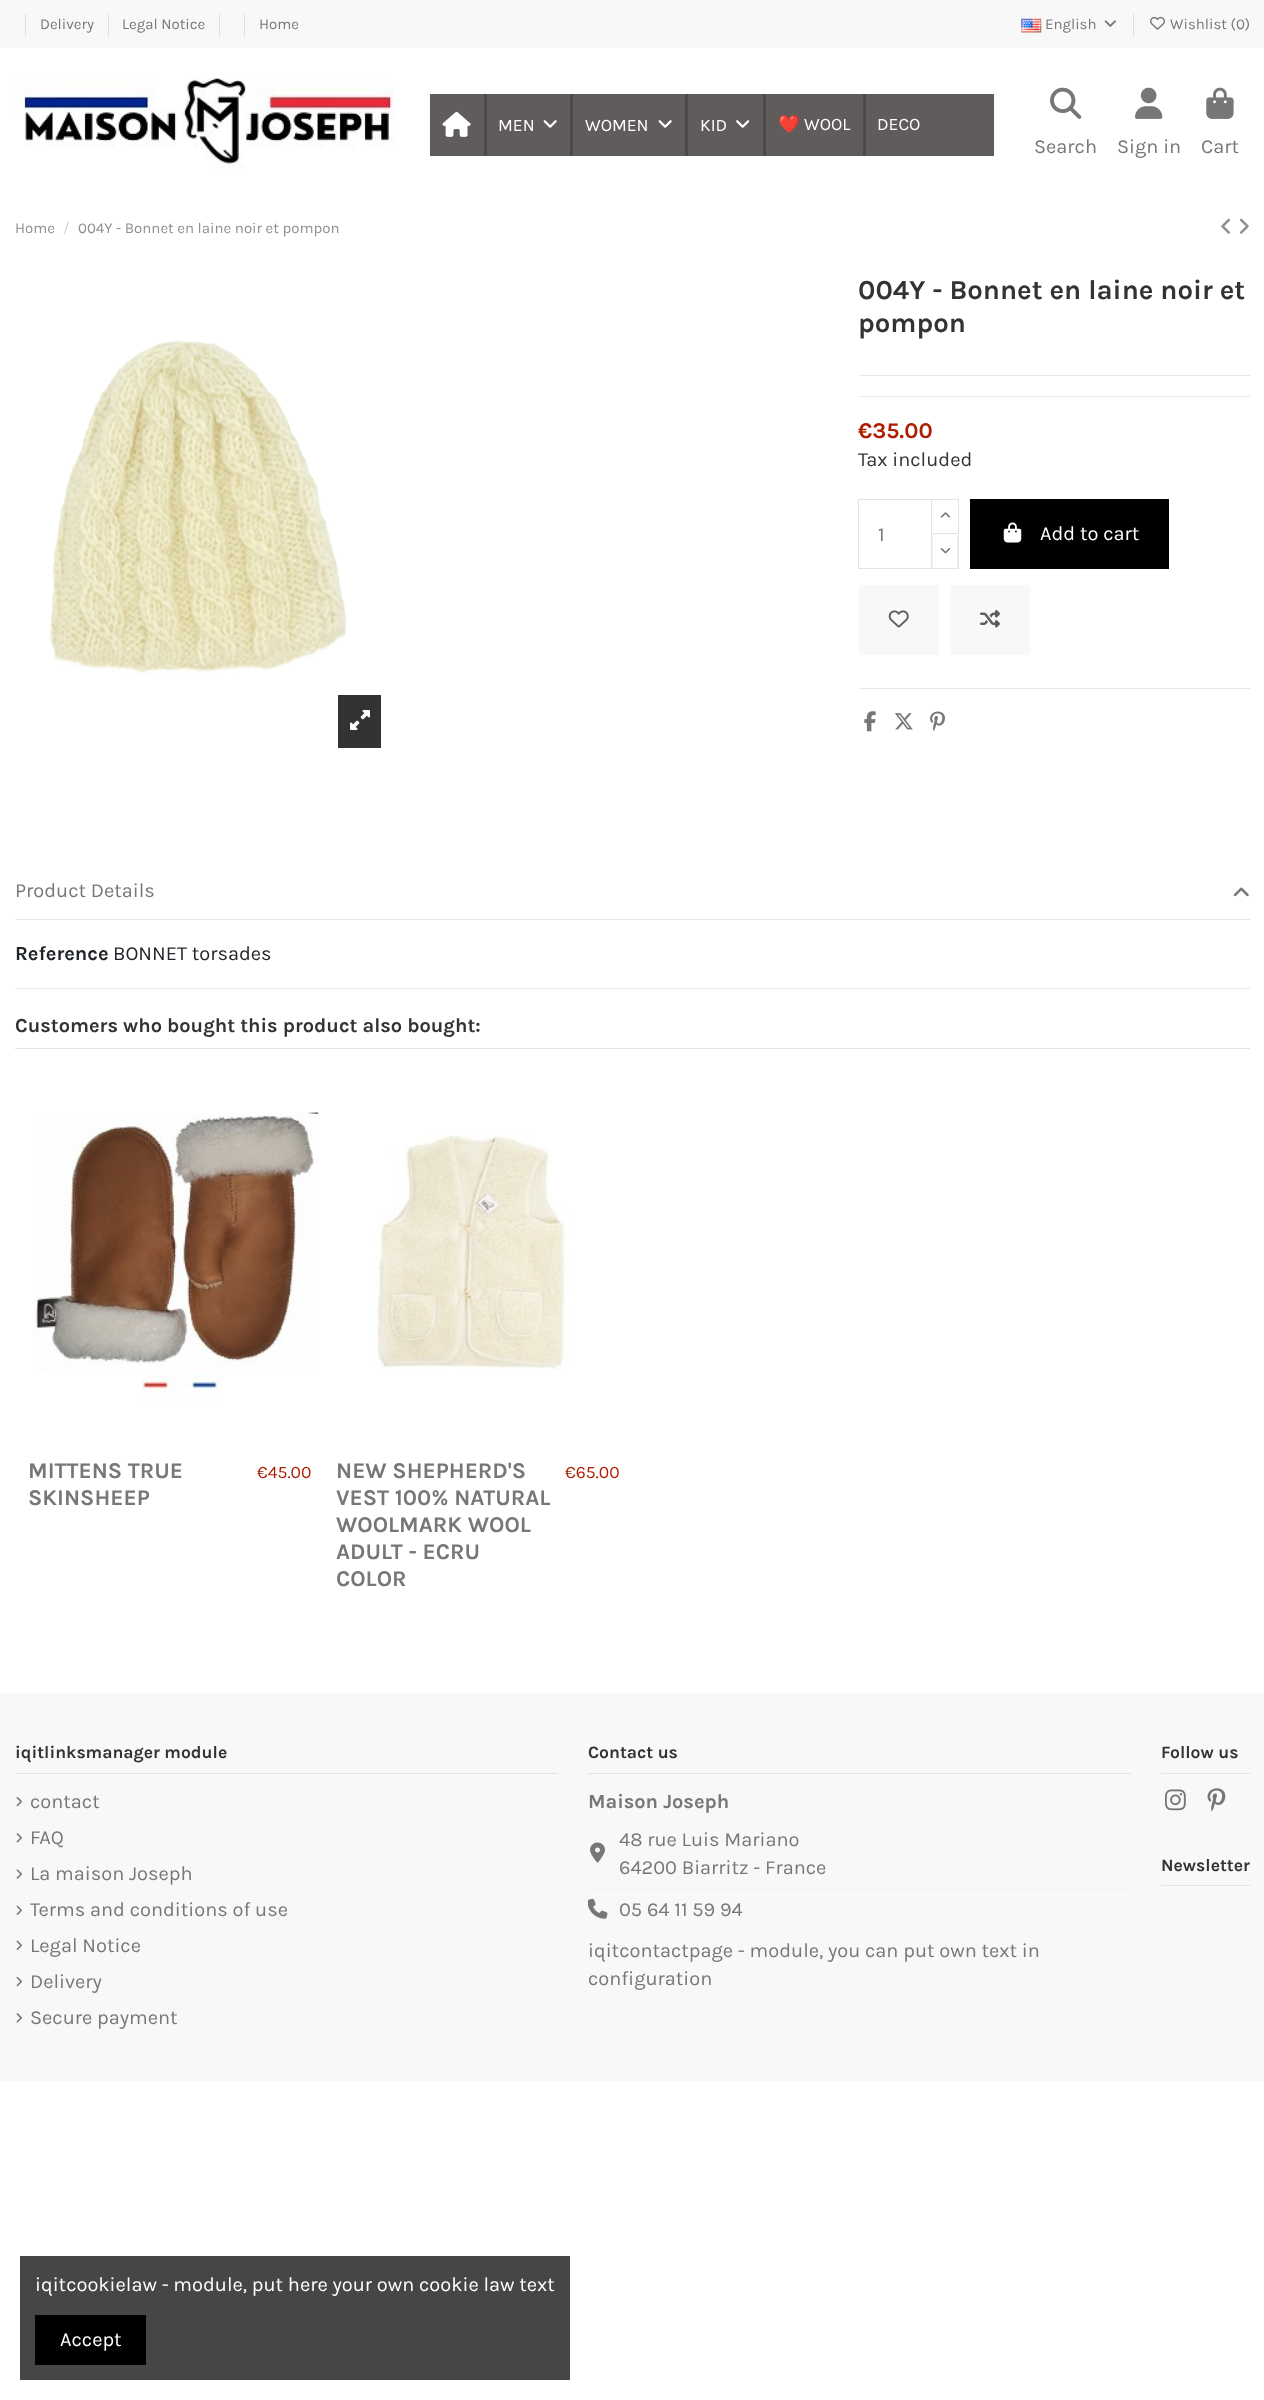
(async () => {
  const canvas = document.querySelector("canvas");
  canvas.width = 1264;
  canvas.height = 2400;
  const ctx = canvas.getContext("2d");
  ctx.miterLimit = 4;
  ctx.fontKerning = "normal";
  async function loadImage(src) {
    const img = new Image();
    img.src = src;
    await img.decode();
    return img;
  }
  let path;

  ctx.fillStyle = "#ffffff";
  ctx.fillRect(0, 0, 1264, 2400);
  for (const [x, y, w, h, color] of [
    [0, 0, 1264, 48, "#f8f8f8"],
    [25, 14, 1, 22, "#dedede"],
    [108, 14, 1, 22, "#dedede"],
    [219, 14, 1, 22, "#dedede"],
    [244, 14, 1, 22, "#dedede"],
  ]) {
    ctx.fillStyle = color;
    ctx.fillRect(x, y, w, h);
  }
  ctx.drawImage(await loadImage("img/1.png"), 1021, 18, 21, 15);
  ctx.drawImage(await loadImage("img/2.png"), 1104, 20, 12, 7);
  ctx.fillRect(1133, 14, 1, 22);
  ctx.drawImage(await loadImage("img/3.png"), 1150, 16, 15, 14);
  ctx.drawImage(await loadImage("img/4.png"), 15, 78, 380, 91);
  ctx.fillStyle = "#615c5c";
  ctx.fillRect(430, 94, 564, 62);
  ctx.drawImage(await loadImage("img/5.png"), 442, 111, 29, 26);
  ctx.fillStyle = "#4b4949";
  ctx.fillRect(484, 94, 3, 62);
  ctx.drawImage(await loadImage("img/6.png"), 543, 120, 14, 8);
  ctx.fillRect(570, 94, 3, 62);
  ctx.drawImage(await loadImage("img/6.png"), 658, 120, 14, 8);
  ctx.fillRect(685, 94, 3, 62);
  ctx.drawImage(await loadImage("img/7.png"), 736, 120, 14, 8);
  ctx.fillRect(763, 94, 3, 62);
  ctx.fillRect(863, 94, 3, 62);
  ctx.drawImage(await loadImage("img/8.png"), 1050, 87, 32, 32);
  ctx.drawImage(await loadImage("img/9.png"), 1135, 87, 28, 32);
  ctx.drawImage(await loadImage("img/10.png"), 1206, 87, 28, 32);
  ctx.drawImage(await loadImage("img/11.png"), 1221, 218, 9, 16);
  ctx.drawImage(await loadImage("img/12.png"), 1240, 218, 9, 16);
  ctx.drawImage(await loadImage("img/13.png"), 49, 340, 298, 334);
  ctx.fillStyle = "#333333";
  ctx.fillRect(338, 695, 43, 53);
  ctx.drawImage(await loadImage("img/14.png"), 350, 710, 20, 20);
  ctx.fillStyle = "#e7e7e7";
  ctx.fillRect(859, 375, 391, 1);
  ctx.fillRect(859, 396, 391, 1);
  ctx.strokeStyle = "#e3e3e3";
  ctx.strokeRect(858.5, 499.5, 75, 69);
  ctx.fillStyle = "#ffffff";
  ctx.fillRect(933, 500, 1, 33);
  ctx.strokeRect(931.5, 499.5, 27, 34);
  ctx.drawImage(await loadImage("img/15.png"), 940, 512, 11, 6);
  ctx.fillRect(933, 534, 1, 34);
  ctx.fillStyle = "#e3e3e3";
  path = new Path2D("M959 534V569L957.5 567.5V535Z");
  ctx.fill(path);
  ctx.fillRect(931, 568, 28, 1);
  path = new Path2D("M931 569V534L932.5 535V567.5Z");
  ctx.fill(path);
  ctx.drawImage(await loadImage("img/16.png"), 940, 548, 11, 6);
  ctx.fillStyle = "#000000";
  ctx.fillRect(970, 499, 199, 70);
  ctx.drawImage(await loadImage("img/17.png"), 1003, 522, 19, 21);
  ctx.fillStyle = "#f8f8f8";
  ctx.fillRect(859, 585, 80, 70);
  ctx.drawImage(await loadImage("img/18.png"), 888, 610, 21, 18);
  ctx.fillRect(950, 585, 80, 70);
  ctx.drawImage(await loadImage("img/19.png"), 980, 610, 20, 18);
  ctx.fillStyle = "#e7e7e7";
  ctx.fillRect(859, 688, 391, 1);
  ctx.drawImage(await loadImage("img/20.png"), 864, 711, 12, 21);
  ctx.drawImage(await loadImage("img/21.png"), 895, 713, 18, 17);
  ctx.drawImage(await loadImage("img/22.png"), 930, 711, 15, 20);
  ctx.fillRect(15, 919, 1235, 1);
  ctx.drawImage(await loadImage("img/23.png"), 1233, 887, 16, 10);
  ctx.fillRect(15, 988, 1235, 1);
  ctx.fillStyle = "#e3e3e3";
  ctx.fillRect(15, 1048, 1235, 1);
  ctx.drawImage(await loadImage("img/24.png"), 33, 1112, 285, 293);
  ctx.drawImage(await loadImage("img/25.png"), 374, 1133, 197, 237);
  ctx.fillStyle = "#f8f8f8";
  ctx.fillRect(0, 1693, 1264, 388);
  ctx.fillStyle = "#e3e3e3";
  ctx.fillRect(15, 1773, 543, 1);
  ctx.drawImage(await loadImage("img/26.png"), 16, 1796, 6, 11);
  ctx.drawImage(await loadImage("img/27.png"), 16, 1833, 6, 10);
  ctx.drawImage(await loadImage("img/28.png"), 16, 1869, 6, 10);
  ctx.drawImage(await loadImage("img/29.png"), 16, 1905, 6, 10);
  ctx.drawImage(await loadImage("img/29.png"), 16, 1940, 6, 10);
  ctx.drawImage(await loadImage("img/26.png"), 16, 1976, 6, 11);
  ctx.drawImage(await loadImage("img/27.png"), 16, 2013, 6, 10);
  ctx.fillRect(588, 1773, 543, 1);
  ctx.drawImage(await loadImage("img/30.png"), 590, 1842, 15, 21);
  ctx.fillStyle = "#f3f3f3";
  ctx.fillRect(588, 1888, 543, 1);
  ctx.drawImage(await loadImage("img/31.png"), 588, 1898, 20, 21);
  ctx.fillRect(588, 1930, 543, 1);
  ctx.fillStyle = "#e3e3e3";
  ctx.fillRect(1161, 1773, 89, 1);
  ctx.drawImage(await loadImage("img/32.png"), 1165, 1789, 21, 22);
  ctx.drawImage(await loadImage("img/33.png"), 1207, 1788, 19, 24);
  for (const [x, y, w, h, color] of [
    [1161, 1885, 89, 1, "#e3e3e3"],
    [20, 2256, 550, 124, "#464646"],
    [35, 2315, 111, 50, "#000000"],
  ]) {
    ctx.fillStyle = color;
    ctx.fillRect(x, y, w, h);
  }
  ctx.font = "15px Karla";
  ctx.fillStyle = "#777777";
  for (const [text, x, y] of [
    ["Delivery", 40, 29],
    ["Legal Notice", 122, 29],
    ["Home", 259, 29],
    ["English", 1045, 29],
    ["Wishlist (0)", 1170, 29],
  ]) {
    ctx.fillText(text, x, y);
  }
  ctx.font = "17.5px Karla";
  ctx.fillStyle = "#ffffff";
  for (const [text, x, y] of [
    ["MEN", 498, 131],
    ["WOMEN", 585, 131],
    ["KID", 700, 131],
  ]) {
    ctx.fillText(text, x, y);
  }
  ctx.font = "17.5px Noto Color Emoji";
  ctx.fillText("❤️", 778, 130);
  ctx.font = "17.5px Karla";
  ctx.fillText("WOOL", 804, 130);
  ctx.fillText("DECO", 877, 130);
  ctx.font = "20px Karla";
  ctx.fillStyle = "#777777";
  for (const [text, x, y] of [
    ["Search", 1034, 153],
    ["Sign in", 1117, 153],
    ["Cart", 1201, 153],
  ]) {
    ctx.fillText(text, x, y);
  }
  ctx.font = "15px Karla";
  ctx.fillStyle = "#8f8f8f";
  ctx.fillText("Home", 15, 233);
  ctx.fillStyle = "#d2d2d2";
  ctx.fillText("/", 63, 233);
  ctx.fillStyle = "#8f8f8f";
  ctx.fillText("004Y - Bonnet en laine noir et pompon", 78, 233);
  ctx.font = "bold 27.5px Karla";
  ctx.fillStyle = "#333333";
  ctx.fillText("004Y - Bonnet en laine noir et", 858, 299);
  ctx.fillText("pompon", 858, 332);
  ctx.font = "bold 22.5px Karla";
  ctx.fillStyle = "#ad1f00";
  ctx.fillText("€35.00", 858, 438);
  ctx.font = "20px Karla";
  ctx.fillStyle = "#333333";
  ctx.fillText("Tax included", 858, 466);
  ctx.fillStyle = "#777777";
  ctx.fillText("1", 878, 541);
  ctx.fillStyle = "#ffffff";
  ctx.fillText("Add to cart", 1040, 540);
  ctx.fillStyle = "#777777";
  ctx.fillText("Product Details", 15, 897);
  ctx.font = "bold 20px Karla";
  ctx.fillStyle = "#212529";
  ctx.fillText("Reference", 15, 960);
  ctx.font = "20px Karla";
  ctx.fillText("BONNET torsades", 113, 960);
  ctx.font = "bold 20px Karla";
  ctx.fillStyle = "#333333";
  ctx.fillText("Customers who bought this product also bought:", 15, 1032);
  ctx.font = "bold 22.5px Karla";
  ctx.fillStyle = "#777777";
  ctx.fillText("MITTENS TRUE", 28, 1478);
  ctx.fillText("SKINSHEEP", 28, 1505);
  ctx.font = "17.5px Karla";
  ctx.fillStyle = "#ad1f00";
  ctx.fillText("€45.00", 257, 1478);
  ctx.font = "bold 22.5px Karla";
  ctx.fillStyle = "#777777";
  for (const [text, x, y] of [
    ["NEW SHEPHERD'S", 336, 1478],
    ["VEST 100% NATURAL", 336, 1505],
    ["WOOLMARK WOOL", 336, 1532],
    ["ADULT - ECRU", 336, 1559],
    ["COLOR", 336, 1586],
  ]) {
    ctx.fillText(text, x, y);
  }
  ctx.font = "17.5px Karla";
  ctx.fillStyle = "#ad1f00";
  ctx.fillText("€65.00", 565, 1478);
  ctx.font = "bold 17.5px Karla";
  ctx.fillStyle = "#333333";
  ctx.fillText("iqitlinksmanager module", 15, 1758);
  ctx.font = "20px Karla";
  ctx.fillStyle = "#777777";
  for (const [text, x, y] of [
    ["contact", 30, 1808],
    ["FAQ", 30, 1844],
    ["La maison Joseph", 30, 1880],
    ["Terms and conditions of use", 30, 1916],
    ["Legal Notice", 30, 1952],
    ["Delivery", 30, 1988],
    ["Secure payment", 30, 2024],
  ]) {
    ctx.fillText(text, x, y);
  }
  ctx.font = "bold 17.5px Karla";
  ctx.fillStyle = "#333333";
  ctx.fillText("Contact us", 588, 1758);
  ctx.font = "bold 20px Karla";
  ctx.fillStyle = "#777777";
  ctx.fillText("Maison Joseph", 588, 1808);
  ctx.font = "20px Karla";
  for (const [text, x, y] of [
    ["48 rue Luis Mariano", 619, 1846],
    ["64200 Biarritz - France", 619, 1874],
    ["05 64 11 59 94", 619, 1916],
    ["iqitcontactpage - module, you can put own text in", 588, 1957],
    ["configuration", 588, 1985],
  ]) {
    ctx.fillText(text, x, y);
  }
  ctx.font = "bold 17.5px Karla";
  ctx.fillStyle = "#333333";
  ctx.fillText("Follow us", 1161, 1758);
  ctx.fillText("Newsletter", 1161, 1871);
  ctx.font = "20px Karla";
  ctx.fillStyle = "#ffffff";
  ctx.fillText("iqitcookielaw - module, put here your own cookie law text", 35, 2291);
  ctx.fillText("Accept", 60, 2346);
})();
